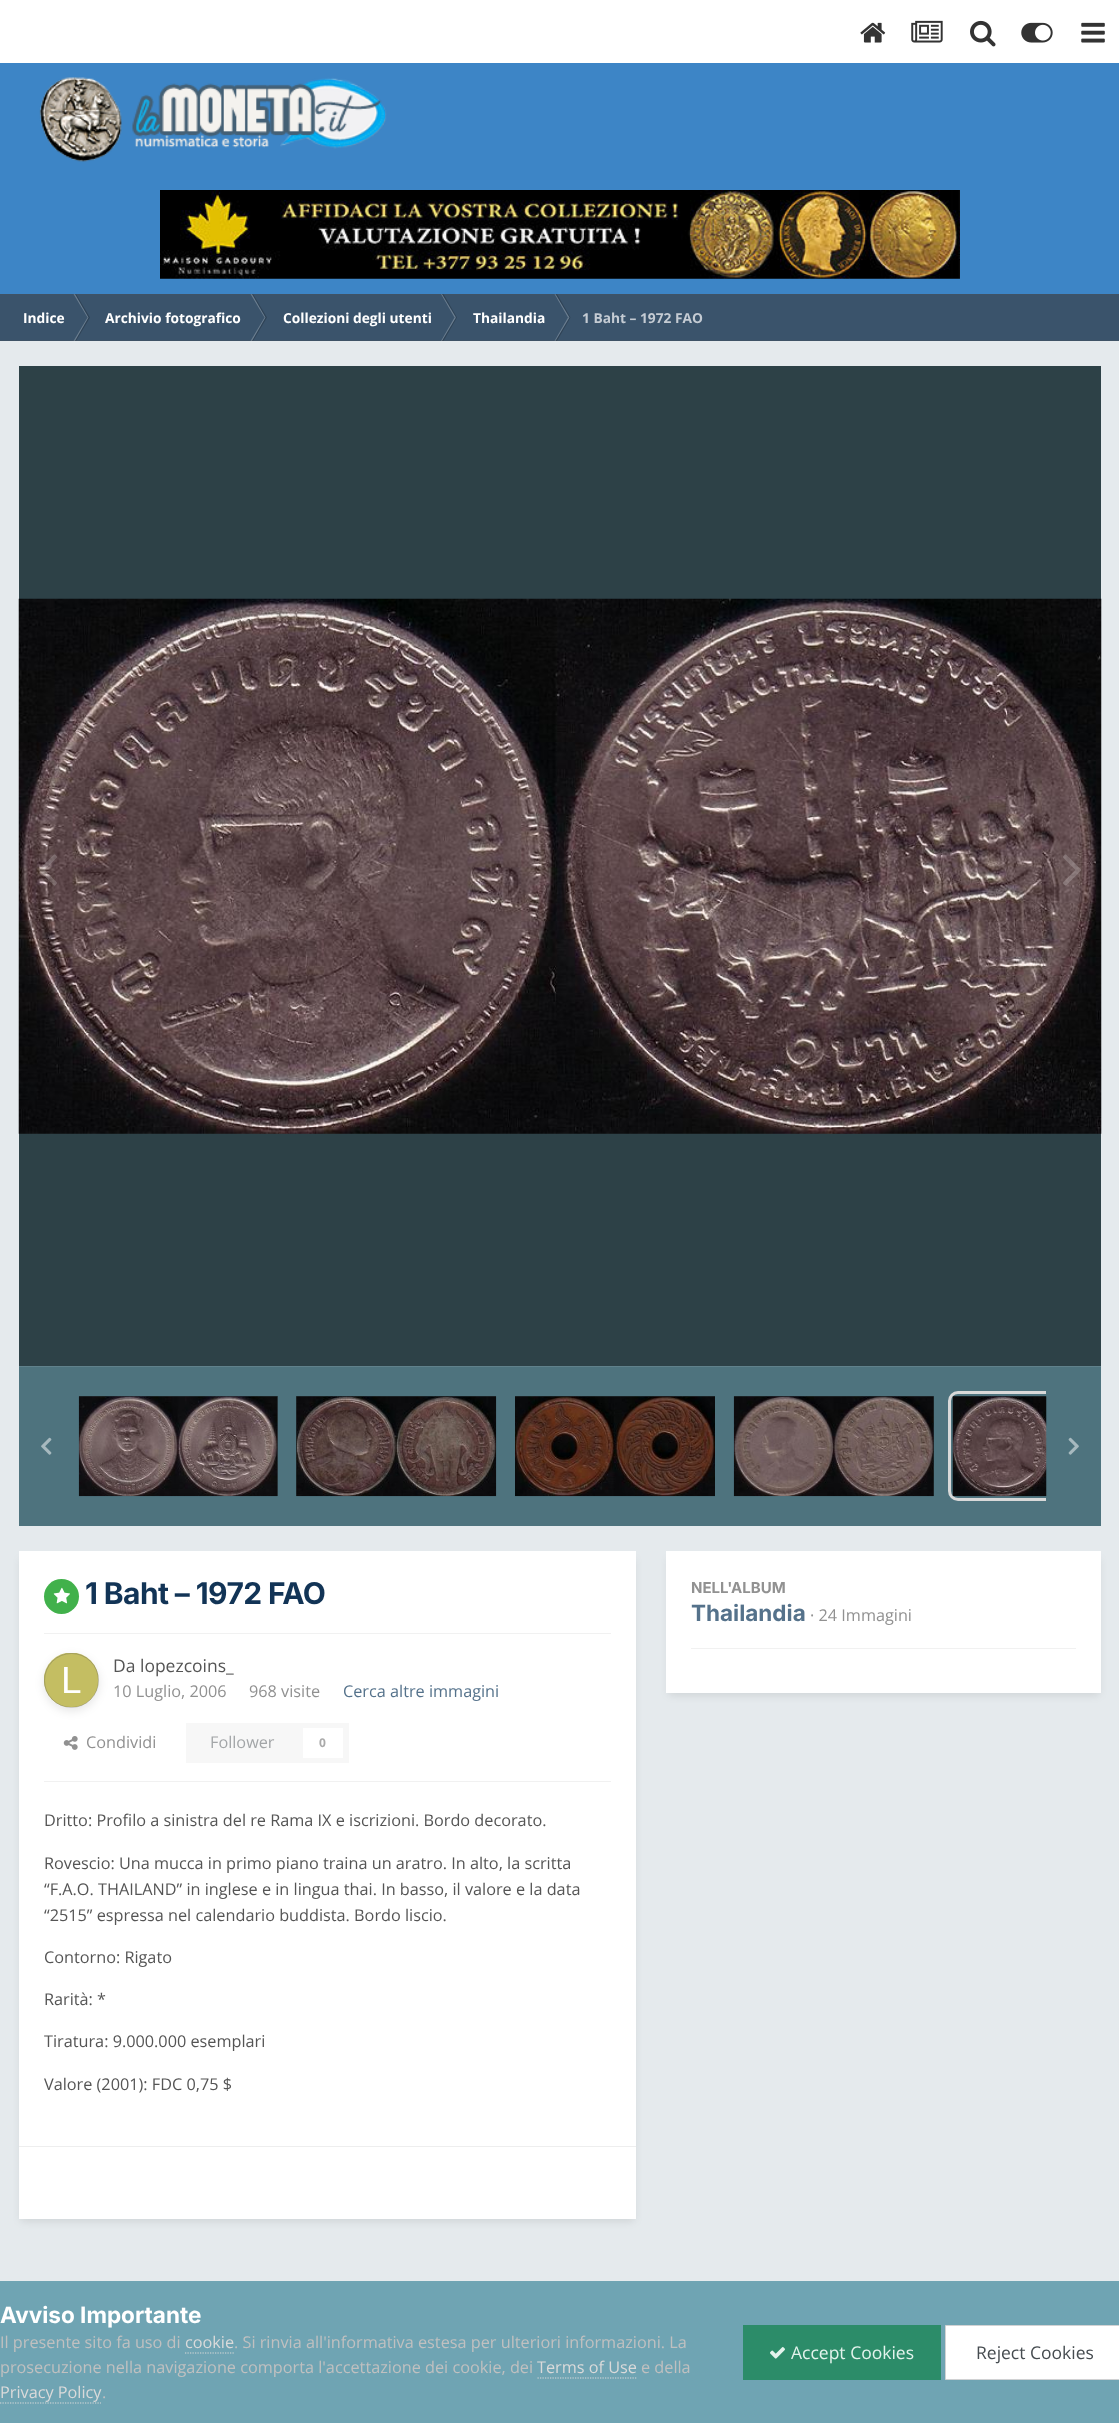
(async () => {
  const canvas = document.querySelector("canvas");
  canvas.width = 1119;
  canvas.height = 2423;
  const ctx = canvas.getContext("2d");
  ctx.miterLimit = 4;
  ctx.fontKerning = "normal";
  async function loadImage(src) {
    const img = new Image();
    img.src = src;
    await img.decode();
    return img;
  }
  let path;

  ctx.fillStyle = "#e5eaed";
  ctx.fillRect(0, 0, 1119, 2423);
  ctx.fillStyle = "#ffffff";
  ctx.fillRect(0, 0, 1119, 63);
  ctx.drawImage(await loadImage("img/1.png"), 860, 22, 26, 21);
  ctx.drawImage(await loadImage("img/2.png"), 911, 20, 32, 23);
  ctx.drawImage(await loadImage("img/3.png"), 970, 20, 26, 27);
  ctx.drawImage(await loadImage("img/4.png"), 1021, 22, 32, 21);
  ctx.drawImage(await loadImage("img/5.png"), 1081, 22, 24, 21);
  ctx.fillStyle = "#3d85c6";
  ctx.fillRect(0, 63, 1119, 231);
  ctx.drawImage(await loadImage("img/6.png"), 39, 77, 348, 85);
  ctx.drawImage(await loadImage("img/7.png"), 160, 190, 800, 89);
  ctx.fillStyle = "#3a536b";
  ctx.fillRect(0, 294, 1119, 47);
  ctx.fillStyle = "#6b7e90";
  path = new Path2D("M73.5 294H75L88.5 317.5H87.5Z");
  ctx.fill(path);
  ctx.fillStyle = "rgba(0, 0, 0, 0.2)";
  path = new Path2D("M75 294H76L90 317.5H88.5Z");
  ctx.fill(path);
  ctx.fillStyle = "#6b7e90";
  path = new Path2D("M250.5 294H252L265.5 317.5H264.5Z");
  ctx.fill(path);
  ctx.fillStyle = "rgba(0, 0, 0, 0.2)";
  path = new Path2D("M252 294H253L267 317.5H265.5Z");
  ctx.fill(path);
  ctx.fillStyle = "#6b7e90";
  path = new Path2D("M441 294H442L456 317.5H454.5Z");
  ctx.fill(path);
  ctx.fillStyle = "rgba(0, 0, 0, 0.2)";
  path = new Path2D("M442 294H443.5L457 317.5H456Z");
  ctx.fill(path);
  ctx.fillStyle = "#6b7e90";
  path = new Path2D("M554.5 294H555.5L569.5 317.5H568Z");
  ctx.fill(path);
  ctx.fillStyle = "rgba(0, 0, 0, 0.2)";
  path = new Path2D("M555.5 294H557L570.5 317.5H569.5Z");
  ctx.fill(path);
  ctx.fillStyle = "rgba(85, 85, 85, 0.2)";
  ctx.fillRect(0, 294, 1119, 1);
  ctx.fillStyle = "#6b7e90";
  path = new Path2D("M73.5 341H75L88.5 317.5H87.5Z");
  ctx.fill(path);
  ctx.fillStyle = "rgba(0, 0, 0, 0.2)";
  path = new Path2D("M75 341H76L90 317.5H88.5Z");
  ctx.fill(path);
  ctx.fillStyle = "#6b7e90";
  path = new Path2D("M250.5 341H252L265.5 317.5H264.5Z");
  ctx.fill(path);
  ctx.fillStyle = "rgba(0, 0, 0, 0.2)";
  path = new Path2D("M252 341H253L267 317.5H265.5Z");
  ctx.fill(path);
  ctx.fillStyle = "#6b7e90";
  path = new Path2D("M441 341H442L456 317.5H454.5Z");
  ctx.fill(path);
  ctx.fillStyle = "rgba(0, 0, 0, 0.2)";
  path = new Path2D("M442 341H443.5L457 317.5H456Z");
  ctx.fill(path);
  ctx.fillStyle = "#6b7e90";
  path = new Path2D("M554.5 341H555.5L569.5 317.5H568Z");
  ctx.fill(path);
  ctx.fillStyle = "rgba(0, 0, 0, 0.2)";
  path = new Path2D("M555.5 341H557L570.5 317.5H569.5Z");
  ctx.fill(path);
  ctx.fillStyle = "rgba(85, 85, 85, 0.2)";
  ctx.fillRect(0, 340, 1119, 1);
  ctx.fillStyle = "#2d4147";
  ctx.fillRect(19, 366, 1082, 1000);
  ctx.drawImage(await loadImage("img/8.png"), 18, 598, 1084, 536);
  ctx.drawImage(await loadImage("img/9.png"), 39, 854, 18, 32);
  ctx.drawImage(await loadImage("img/10.png"), 1063, 854, 18, 32);
  for (const [x, y, w, h, color] of [
    [19, 1367, 1082, 159, "#4e737e"],
    [19, 1366, 1082, 1, "#60818b"],
    [79, 1396, 199, 100, "#2f3f44"],
  ]) {
    ctx.fillStyle = color;
    ctx.fillRect(x, y, w, h);
  }
  ctx.drawImage(await loadImage("img/11.png"), 78, 1396, 200, 101);
  ctx.fillRect(296, 1396, 200, 100);
  ctx.drawImage(await loadImage("img/12.png"), 296, 1396, 201, 101);
  ctx.fillRect(515, 1396, 200, 1);
  ctx.drawImage(await loadImage("img/13.png"), 515, 1396, 200, 101);
  ctx.fillRect(734, 1396, 200, 100);
  ctx.drawImage(await loadImage("img/14.png"), 733, 1396, 201, 101);
  ctx.fillRect(953, 1396, 93, 1);
  ctx.save();
  ctx.beginPath();
  ctx.rect(74, 1391, 972, 110);
  ctx.clip();
  ctx.beginPath();
  ctx.roundRect(949.5, 1392.5, 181, 107, 8.5);
  ctx.strokeStyle = "#d9d9d9";
  ctx.lineWidth = 3;
  ctx.stroke();
  ctx.restore();
  ctx.drawImage(await loadImage("img/15.png"), 952, 1396, 95, 101);
  ctx.drawImage(await loadImage("img/16.png"), 41, 1437, 11, 18);
  ctx.drawImage(await loadImage("img/17.png"), 1068, 1437, 11, 18);
  ctx.fillStyle = "rgba(0, 0, 0, 0.1)";
  ctx.filter = "blur(4px)";
  ctx.beginPath();
  ctx.rect(21, 1559, 613, 662);
  ctx.fill();
  ctx.filter = "none";
  ctx.fillStyle = "#ffffff";
  ctx.fillRect(19, 1551, 617, 668);
  ctx.fillStyle = "#41b14b";
  ctx.beginPath();
  ctx.arc(61.5, 1596.5, 17.5, 0, Math.PI * 2);
  ctx.fill();
  ctx.drawImage(await loadImage("img/18.png"), 53, 1587, 17, 17);
  ctx.fillStyle = "#f1f1f1";
  ctx.fillRect(44, 1633, 567, 1);
  ctx.drawImage(await loadImage("img/19.png"), 44, 1653, 55, 55);
  ctx.save();
  path = new Path2D("M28 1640H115V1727H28ZM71.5 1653C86.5 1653 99 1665.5 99 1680.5C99 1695.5 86.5 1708 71.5 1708C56.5 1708 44 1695.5 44 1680.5C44 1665.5 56.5 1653 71.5 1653Z");
  ctx.clip(path, "evenodd");
  ctx.fillStyle = "rgba(0, 0, 0, 0.1)";
  ctx.filter = "blur(5px)";
  ctx.beginPath();
  ctx.roundRect(44, 1656, 55, 55, 27.5);
  ctx.fill();
  ctx.filter = "none";
  ctx.restore();
  ctx.beginPath();
  ctx.arc(71.5, 1680.5, 27, 0, Math.PI * 2);
  ctx.strokeStyle = "rgba(85, 85, 85, 0.3)";
  ctx.stroke();
  ctx.drawImage(await loadImage("img/20.png"), 63, 1736, 15, 14);
  for (const [x, y, w, h, color] of [
    [186, 1723, 163, 40, "#f7f7f7"],
    [303, 1728, 40, 30, "#ffffff"],
    [44, 1781, 567, 1, "#f1f1f1"],
    [19, 2146, 617, 1, "#eeeeee"],
  ]) {
    ctx.fillStyle = color;
    ctx.fillRect(x, y, w, h);
  }
  ctx.fillStyle = "rgba(0, 0, 0, 0.1)";
  ctx.filter = "blur(4px)";
  ctx.beginPath();
  ctx.rect(669, 1559, 430, 136);
  ctx.fill();
  ctx.filter = "none";
  for (const [x, y, w, h, color] of [
    [666, 1551, 435, 142, "#ffffff"],
    [691, 1648, 385, 1, "#f1f1f1"],
    [0, 2281, 1119, 142, "#6fa4b3"],
  ]) {
    ctx.fillStyle = color;
    ctx.fillRect(x, y, w, h);
  }
  path = new Path2D("M185 2353H234");
  ctx.strokeStyle = "#dadada";
  ctx.lineWidth = 1.2;
  ctx.setLineDash([1.25, 1.25]);
  ctx.stroke(path);
  path = new Path2D("M537.5 2378H637.5");
  ctx.stroke(path);
  path = new Path2D("M0 2403H101");
  ctx.stroke(path);
  ctx.fillStyle = "#2c8c69";
  ctx.fillRect(743, 2325, 198, 55);
  ctx.drawImage(await loadImage("img/21.png"), 770, 2347, 15, 12);
  ctx.fillStyle = "#ffffff";
  ctx.beginPath();
  ctx.rect(945.5, 2325.5, 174, 54);
  ctx.fill();
  ctx.strokeStyle = "#d1d2d3";
  ctx.lineWidth = 1;
  ctx.setLineDash([]);
  ctx.stroke();
  ctx.font = "bold 13.75px Open Sans";
  for (const [text, x, y] of [
    ["Indice", 23, 323],
    ["Archivio fotografico", 105, 323],
    ["Collezioni degli utenti", 283, 323],
    ["Thailandia", 473, 323],
  ]) {
    ctx.fillText(text, x, y);
  }
  ctx.fillStyle = "#c4cbd3";
  ctx.fillText("1 Baht – 1972 FAO", 582, 323);
  ctx.letterSpacing = "-0.6px";
  ctx.font = "bold 30px Inter";
  ctx.fillStyle = "#123456";
  ctx.fillText("1 Baht – 1972 FAO", 85, 1604);
  ctx.letterSpacing = "0px";
  ctx.font = "17.5px Open Sans";
  ctx.fillStyle = "#555555";
  ctx.fillText("Da lopezcoins_", 113, 1672);
  ctx.font = "16.25px Open Sans";
  ctx.fillStyle = "#919191";
  ctx.fillText("10 Luglio, 2006", 113, 1697);
  ctx.fillText("968 visite", 249, 1697);
  ctx.fillStyle = "#55728b";
  ctx.fillText("Cerca altre immagini", 343, 1697);
  ctx.fillStyle = "#919191";
  ctx.fillText("Condividi", 86, 1748);
  ctx.fillStyle = "#a3a6a8";
  ctx.fillText("Follower", 210, 1748);
  ctx.font = "bold 12px Open Sans";
  ctx.fillStyle = "#aaaaaa";
  ctx.fillText("0", 319, 1747);
  ctx.font = "16.25px Open Sans";
  ctx.fillStyle = "#555555";
  for (const [text, x, y] of [
    ["Dritto: Profilo a sinistra del re Rama IX e iscrizioni. Bordo decorato.", 44, 1826],
    ["Rovescio: Una mucca in primo piano traina un aratro. In alto, la scritta", 44, 1869],
    ["“F.A.O. THAILAND” in inglese e in lingua thai. In basso, il valore e la data", 44, 1895],
    ["“2515” espressa nel calendario buddista. Bordo liscio.", 44, 1921],
    ["Contorno: Rigato", 44, 1963],
    ["Rarità: *", 44, 2005],
    ["Tiratura: 9.000.000 esemplari", 44, 2047],
    ["Valore (2001): FDC 0,75 $", 44, 2090],
  ]) {
    ctx.fillText(text, x, y);
  }
  ctx.font = "bold 15px Inter";
  ctx.fillStyle = "#919191";
  ctx.fillText("NELL'ALBUM", 691, 1593);
  ctx.font = "bold 22.5px Inter";
  ctx.fillStyle = "#55728b";
  ctx.fillText("Thailandia", 691, 1621);
  ctx.font = "16.25px Open Sans";
  ctx.fillStyle = "#919191";
  ctx.fillText("· 24 Immagini", 810, 1621);
  ctx.font = "bold 22.5px Inter";
  ctx.fillStyle = "#ffffff";
  ctx.fillText("Avviso Importante", 0, 2323);
  ctx.font = "16.25px Open Sans";
  ctx.fillStyle = "#c0c0c0";
  ctx.fillText("Il presente sito fa uso di", 0, 2348);
  ctx.fillStyle = "#dadada";
  ctx.fillText("cookie", 185, 2348);
  ctx.fillStyle = "#c0c0c0";
  ctx.fillText(". Si rinvia all'informativa estesa per ulteriori informazioni. La", 234, 2348);
  ctx.fillText("prosecuzione nella navigazione comporta l'accettazione dei cookie, dei", 0, 2373);
  ctx.fillStyle = "#dadada";
  ctx.fillText("Terms of Use", 537, 2373);
  ctx.fillStyle = "#c0c0c0";
  ctx.fillText("e della", 641, 2373);
  ctx.fillStyle = "#dadada";
  ctx.fillText("Privacy Policy", 0, 2398);
  ctx.fillStyle = "#c0c0c0";
  ctx.fillText(".", 102, 2398);
  ctx.font = "17.5px Open Sans";
  ctx.fillStyle = "#e3f3ec";
  ctx.fillText("Accept Cookies", 791, 2359);
  ctx.fillStyle = "#464c50";
  ctx.fillText("Reject Cookies", 976, 2359);
})();
